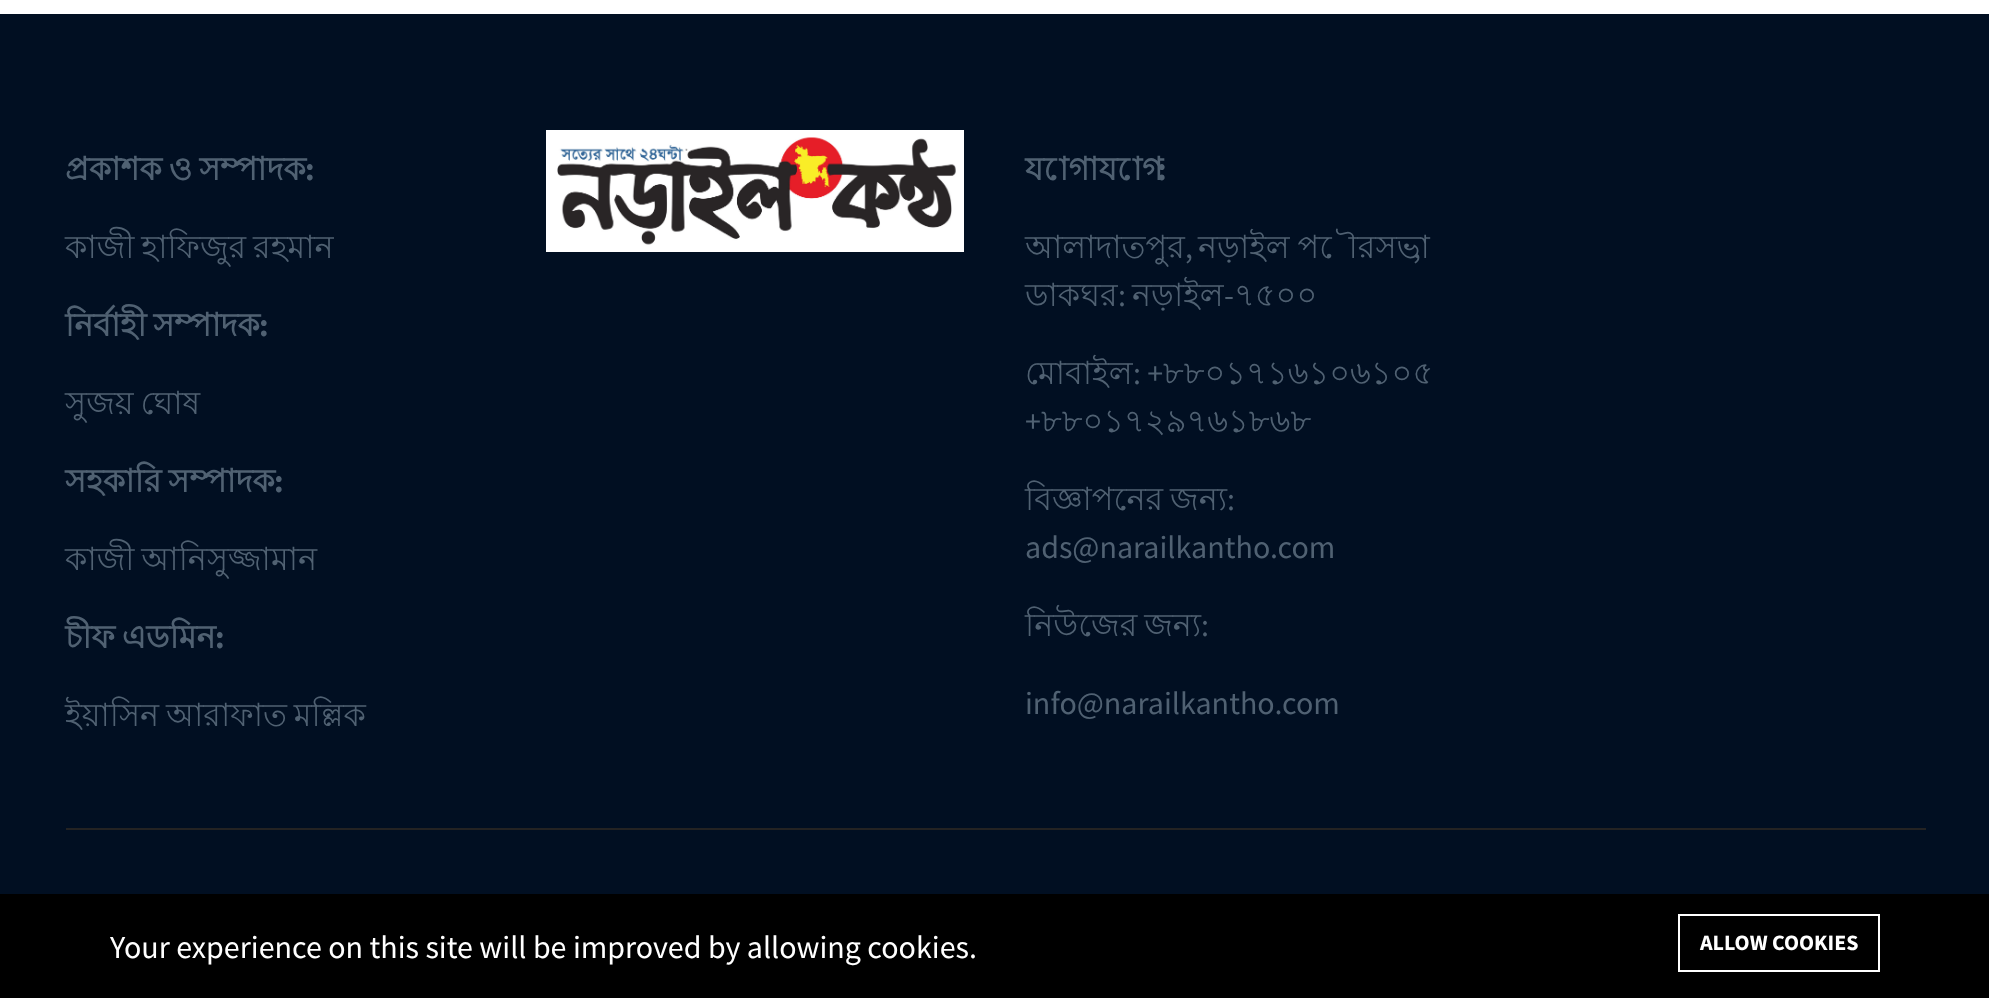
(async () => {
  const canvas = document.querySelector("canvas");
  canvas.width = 1989;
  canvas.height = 998;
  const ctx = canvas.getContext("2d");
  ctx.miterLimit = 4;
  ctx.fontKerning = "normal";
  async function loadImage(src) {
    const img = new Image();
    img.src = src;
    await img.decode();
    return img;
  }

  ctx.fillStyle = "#ffffff";
  ctx.fillRect(0, 0, 1989, 998);
  ctx.fillStyle = "#010f22";
  ctx.fillRect(0, 14, 1989, 880);
  ctx.fillStyle = "#242323";
  ctx.fillRect(66, 828, 1860, 2);
  ctx.drawImage(await loadImage("img/1.png"), 546, 130, 418, 122);
  ctx.fillStyle = "#000000";
  ctx.fillRect(0, 894, 1989, 104);
  ctx.strokeStyle = "#ffffff";
  ctx.lineWidth = 2;
  ctx.strokeRect(1679, 915, 200, 56);
  ctx.wordSpacing = "-2px";
  ctx.font = "bold 32px Lohit Bengali";
  ctx.fillStyle = "#506172";
  ctx.fillText("প্রকাশক ও সম্পাদক", 65, 180);
  ctx.wordSpacing = "0px";
  ctx.font = "bold 32px Source Sans Pro";
  ctx.fillText(":", 305, 180);
  ctx.wordSpacing = "-2px";
  ctx.font = "32px Lohit Bengali";
  ctx.fillText("কাজী হাফিজুর রহমান", 65, 258);
  ctx.font = "bold 32px Lohit Bengali";
  ctx.fillText("নির্বাহী সম্পাদক", 65, 336);
  ctx.wordSpacing = "0px";
  ctx.font = "bold 32px Source Sans Pro";
  ctx.fillText(":", 259, 336);
  ctx.wordSpacing = "-2px";
  ctx.font = "32px Lohit Bengali";
  ctx.fillText("সুজয় ঘোষ", 65, 414);
  ctx.font = "bold 32px Lohit Bengali";
  ctx.fillText("সহকারি সম্পাদক", 65, 492);
  ctx.wordSpacing = "0px";
  ctx.font = "bold 32px Source Sans Pro";
  ctx.fillText(":", 274, 492);
  ctx.wordSpacing = "-2px";
  ctx.font = "32px Lohit Bengali";
  ctx.fillText("কাজী আনিসুজ্জামান", 65, 570);
  ctx.font = "bold 32px Lohit Bengali";
  ctx.fillText("চীফ এডমিন", 65, 648);
  ctx.wordSpacing = "0px";
  ctx.font = "bold 32px Source Sans Pro";
  ctx.fillText(":", 215, 648);
  ctx.wordSpacing = "-2px";
  ctx.font = "32px Lohit Bengali";
  ctx.fillText("ইয়াসিন আরাফাত মল্লিক", 65, 726);
  ctx.wordSpacing = "0px";
  ctx.font = "bold 32px Lohit Bengali";
  ctx.fillText("যোগাযোগ", 1025, 180);
  ctx.font = "bold 32px Source Sans Pro";
  ctx.fillText(":", 1157, 180);
  ctx.font = "32px Lohit Bengali";
  ctx.fillText("আলাদাতপুর", 1025, 258);
  ctx.font = "32px Source Sans Pro";
  ctx.fillText(",", 1185, 258);
  ctx.wordSpacing = "-1px";
  ctx.font = "32px Lohit Bengali";
  ctx.fillText("নড়াইল পৌরসভা", 1198, 258);
  ctx.wordSpacing = "0px";
  ctx.font = "32px Source Sans Pro";
  ctx.fillText(",", 1413, 258);
  ctx.font = "32px Lohit Bengali";
  ctx.fillText("ডাকঘর", 1025, 306);
  ctx.font = "32px Source Sans Pro";
  ctx.fillText(":", 1118, 306);
  ctx.font = "32px Lohit Bengali";
  ctx.fillText("নড়াইল", 1132, 306);
  ctx.font = "32px Source Sans Pro";
  ctx.fillText("-", 1224, 306);
  ctx.font = "32px Lohit Bengali";
  ctx.fillText("৭৫০০", 1234, 306);
  ctx.fillText("মোবাইল", 1025, 384);
  ctx.font = "32px Source Sans Pro";
  ctx.fillText(": +", 1133, 384);
  ctx.font = "32px Lohit Bengali";
  ctx.fillText("৮৮০১৭১৬১০৬১০৫", 1163, 384);
  ctx.font = "32px Source Sans Pro";
  ctx.fillText("+", 1025, 432);
  ctx.font = "32px Lohit Bengali";
  ctx.fillText("৮৮০১৭২৯৭৬১৮৬৮", 1041, 432);
  ctx.wordSpacing = "-2px";
  ctx.fillText("বিজ্ঞাপনের জন্য", 1025, 510);
  ctx.wordSpacing = "0px";
  ctx.font = "32px Source Sans Pro";
  ctx.fillText(":", 1227, 510);
  ctx.fillText("ads@narailkantho.com", 1025, 558);
  ctx.wordSpacing = "-2px";
  ctx.font = "32px Lohit Bengali";
  ctx.fillText("নিউজের জন্য", 1025, 636);
  ctx.wordSpacing = "0px";
  ctx.font = "32px Source Sans Pro";
  ctx.fillText(":", 1201, 636);
  ctx.fillText("info@narailkantho.com", 1025, 714);
  ctx.fillStyle = "#ffffff";
  ctx.fillText("Your experience on this site will be improved by allowing cookies.", 110, 958);
  ctx.font = "bold 22px Source Sans Pro";
  ctx.fillText("ALLOW COOKIES", 1700, 950);
})();
